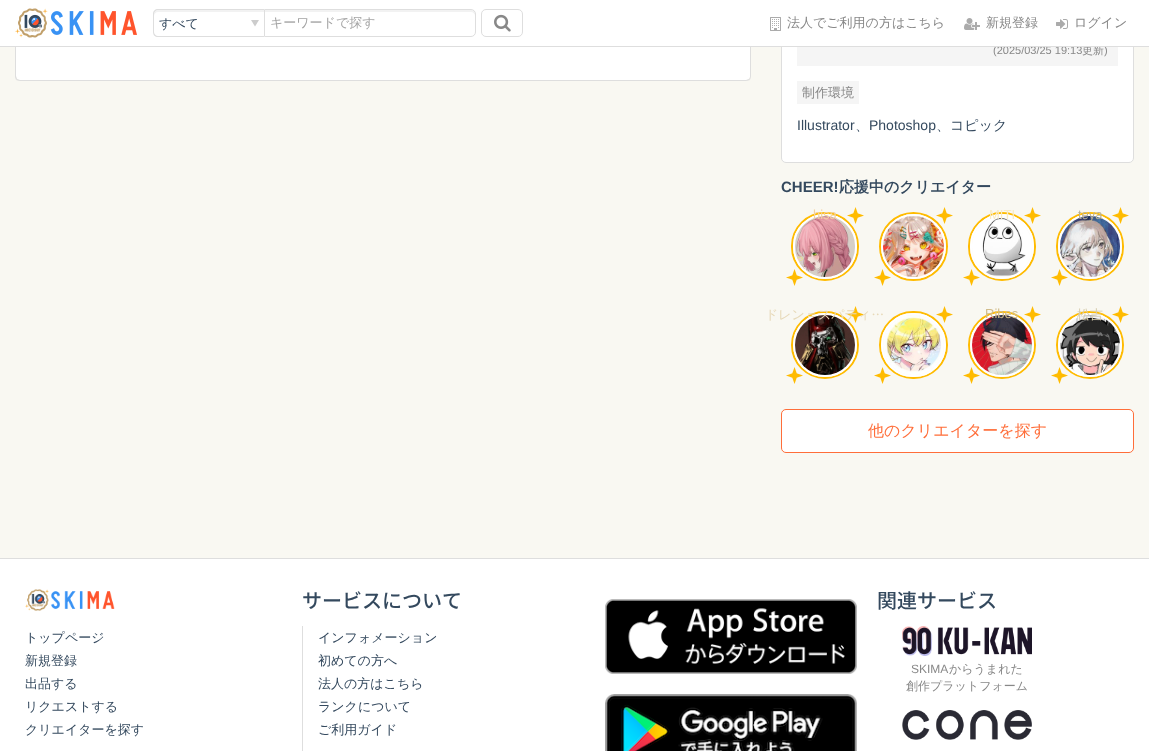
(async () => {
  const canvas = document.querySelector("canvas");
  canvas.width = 1149;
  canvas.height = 751;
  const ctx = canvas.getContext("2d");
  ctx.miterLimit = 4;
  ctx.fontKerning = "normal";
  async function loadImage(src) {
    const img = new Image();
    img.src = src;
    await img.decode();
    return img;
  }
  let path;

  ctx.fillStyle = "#ffffff";
  ctx.fillRect(0, 0, 1149, 751);
  ctx.fillStyle = "#f9f8f2";
  ctx.fillRect(0, 47, 1149, 511);
  ctx.fillStyle = "#ffffff";
  path = new Path2D("M16-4H750V76C750 78 748 80 746 80H20C18 80 16 78 16 76Z");
  ctx.fill(path);
  ctx.fillStyle = "#dedede";
  path = new Path2D("M751-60L750-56V76C750 77 750 78 749 79L750 80C750 79 751 78 751 76Z");
  ctx.fill(path);
  path = new Path2D("M20 81H746C748 81 749 80 750 80L749 79L746 80H20L17 79L16 80C17 80 18 81 20 81Z");
  ctx.fill(path);
  path = new Path2D("M16-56L15-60V77L16 80L17 79L16 76Z");
  ctx.fill(path);
  ctx.fillStyle = "#ffffff";
  ctx.beginPath();
  ctx.roundRect(781.5, -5.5, 352, 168, 4.5);
  ctx.fill();
  ctx.strokeStyle = "#dedede";
  ctx.stroke();
  ctx.fillStyle = "#f5f5f5";
  ctx.fillRect(797, 47, 321, 19);
  ctx.fillRect(797, 81, 62, 23);
  ctx.beginPath();
  ctx.roundRect(792, 213, 66, 67, 33);
  ctx.strokeStyle = "#ffbb00";
  ctx.lineWidth = 2;
  ctx.stroke();
  ctx.beginPath();
  ctx.roundRect(794, 215, 62, 63, 31);
  ctx.strokeStyle = "#ffffff";
  ctx.stroke();
  ctx.drawImage(await loadImage("img/8.png"), 795, 216, 60, 61);
  ctx.drawImage(await loadImage("img/6.png"), 847, 207, 17, 17);
  ctx.drawImage(await loadImage("img/7.png"), 786, 269, 17, 17);
  ctx.beginPath();
  ctx.arc(913.5, 246.5, 33.5, 0, Math.PI * 2);
  ctx.strokeStyle = "#ffbb00";
  ctx.stroke();
  ctx.beginPath();
  ctx.arc(913.5, 246.5, 31.5, 0, Math.PI * 2);
  ctx.strokeStyle = "#ffffff";
  ctx.stroke();
  ctx.drawImage(await loadImage("img/11.png"), 883, 216, 61, 61);
  ctx.drawImage(await loadImage("img/9.png"), 936, 207, 17, 17);
  ctx.drawImage(await loadImage("img/10.png"), 874, 269, 17, 17);
  ctx.beginPath();
  ctx.roundRect(969, 213, 66, 67, 33);
  ctx.strokeStyle = "#ffbb00";
  ctx.stroke();
  ctx.beginPath();
  ctx.roundRect(971, 215, 62, 63, 31);
  ctx.strokeStyle = "#ffffff";
  ctx.stroke();
  ctx.drawImage(await loadImage("img/12.png"), 972, 216, 60, 61);
  ctx.drawImage(await loadImage("img/6.png"), 1024, 207, 17, 17);
  ctx.drawImage(await loadImage("img/7.png"), 963, 269, 17, 17);
  ctx.beginPath();
  ctx.roundRect(1057, 213, 66, 67, 33);
  ctx.strokeStyle = "#ffbb00";
  ctx.stroke();
  ctx.beginPath();
  ctx.roundRect(1059, 215, 62, 63, 31);
  ctx.strokeStyle = "#ffffff";
  ctx.stroke();
  ctx.drawImage(await loadImage("img/13.png"), 1060, 216, 60, 61);
  ctx.drawImage(await loadImage("img/6.png"), 1112, 207, 17, 17);
  ctx.drawImage(await loadImage("img/7.png"), 1051, 269, 17, 17);
  ctx.beginPath();
  ctx.arc(825, 345, 33, 0, Math.PI * 2);
  ctx.strokeStyle = "#ffbb00";
  ctx.stroke();
  ctx.beginPath();
  ctx.arc(825, 345, 31, 0, Math.PI * 2);
  ctx.strokeStyle = "#ffffff";
  ctx.stroke();
  ctx.drawImage(await loadImage("img/14.png"), 795, 315, 60, 60);
  ctx.drawImage(await loadImage("img/6.png"), 847, 306, 17, 17);
  ctx.drawImage(await loadImage("img/7.png"), 786, 367, 17, 17);
  ctx.beginPath();
  ctx.roundRect(880, 312, 67, 66, 33);
  ctx.strokeStyle = "#ffbb00";
  ctx.stroke();
  ctx.beginPath();
  ctx.roundRect(882, 314, 63, 62, 31);
  ctx.strokeStyle = "#ffffff";
  ctx.stroke();
  ctx.drawImage(await loadImage("img/15.png"), 883, 315, 61, 60);
  ctx.drawImage(await loadImage("img/6.png"), 936, 306, 17, 17);
  ctx.drawImage(await loadImage("img/7.png"), 874, 367, 17, 17);
  ctx.beginPath();
  ctx.arc(1002, 345, 33, 0, Math.PI * 2);
  ctx.strokeStyle = "#ffbb00";
  ctx.stroke();
  ctx.beginPath();
  ctx.arc(1002, 345, 31, 0, Math.PI * 2);
  ctx.strokeStyle = "#ffffff";
  ctx.stroke();
  ctx.drawImage(await loadImage("img/16.png"), 972, 315, 60, 60);
  ctx.drawImage(await loadImage("img/6.png"), 1024, 306, 17, 17);
  ctx.drawImage(await loadImage("img/7.png"), 963, 367, 17, 17);
  ctx.beginPath();
  ctx.arc(1090, 345, 33, 0, Math.PI * 2);
  ctx.strokeStyle = "#ffbb00";
  ctx.stroke();
  ctx.beginPath();
  ctx.arc(1090, 345, 31, 0, Math.PI * 2);
  ctx.strokeStyle = "#ffffff";
  ctx.stroke();
  ctx.drawImage(await loadImage("img/17.png"), 1060, 315, 60, 60);
  ctx.drawImage(await loadImage("img/6.png"), 1112, 306, 17, 17);
  ctx.drawImage(await loadImage("img/7.png"), 1051, 367, 17, 17);
  ctx.fillStyle = "#ffffff";
  ctx.beginPath();
  ctx.roundRect(781.5, 409.5, 352, 43, 4.5);
  ctx.fill();
  ctx.strokeStyle = "#ff6e3a";
  ctx.lineWidth = 1;
  ctx.stroke();
  ctx.fillStyle = "#dedede";
  ctx.fillRect(0, 558, 1149, 1);
  ctx.drawImage(await loadImage("img/18.png"), 25, 589, 90, 22);
  ctx.fillRect(302, 626, 1, 125);
  ctx.drawImage(await loadImage("img/19.png"), 605, 599, 252, 75);
  ctx.drawImage(await loadImage("img/20.png"), 605, 694, 252, 57);
  ctx.drawImage(await loadImage("img/21.png"), 902, 626, 130, 30);
  ctx.drawImage(await loadImage("img/22.png"), 902, 710, 130, 30);
  ctx.font = "11px Liberation Sans";
  ctx.fillStyle = "#888888";
  ctx.fillText("(2025/03/25 19:13", 993, 54);
  ctx.font = "500 11px WenQuanYi Zen Hei";
  ctx.fillText("更新", 1082, 54);
  ctx.fillStyle = "#ffffff";
  ctx.fillRect(15, 0, 1119, 46);
  ctx.font = "500 13px WenQuanYi Zen Hei";
  ctx.fillStyle = "#888888";
  ctx.fillText("ログイン", 1074, 27);
  ctx.drawImage(await loadImage("img/5.png"), 1056, 19, 12, 10);
  ctx.fillText("新規登録", 986, 27);
  ctx.drawImage(await loadImage("img/4.png"), 964, 18, 16, 12);
  ctx.fillText("法人でご利用の方はこちら", 787, 27);
  ctx.drawImage(await loadImage("img/3.png"), 770, 17, 11, 14);
  ctx.beginPath();
  ctx.roundRect(481.5, 9.5, 41, 27, 4.5);
  ctx.strokeStyle = "#dedede";
  ctx.stroke();
  ctx.drawImage(await loadImage("img/2.png"), 494, 14, 17, 18);
  ctx.fillStyle = "#f2f2f2";
  path = new Path2D("M265 12H471C473 12 475 14 475 16C475 13 475 10 471 10H265Z");
  ctx.fill(path);
  ctx.beginPath();
  ctx.roundRect(264.5, 9.5, 211, 27, [0, 4.5, 4.5, 0]);
  ctx.stroke();
  ctx.fillStyle = "#a4a4a4";
  ctx.fillText("キーワードで探す", 270, 27);
  ctx.fillStyle = "#f2f2f2";
  path = new Path2D("M158 12H264V10H158C156 10 154 12 154 14V16C154 14 156 12 158 12Z");
  ctx.fill(path);
  ctx.fillStyle = "#cccccc";
  path = new Path2D("M255 26.5L251 20H259Z");
  ctx.fill(path);
  ctx.fillStyle = "#dedede";
  path = new Path2D("M158 9H264V37H158C155 37 153 35 153 32V14C153 11 155 9 158 9ZM158 10H264V36H158C156 36 154 34 154 32V14C154 12 156 10 158 10Z");
  ctx.fill(path, "evenodd");
  ctx.fillStyle = "#34495e";
  ctx.fillText("すべて", 159, 28);
  ctx.drawImage(await loadImage("img/1.png"), 15, 8, 122, 30);
  ctx.font = "11px Liberation Sans";
  ctx.fillStyle = "#888888";
  ctx.fillText(")", 1104, 54);
  ctx.fillStyle = "#dedede";
  ctx.fillRect(0, 46, 1149, 1);
  ctx.font = "500 13px WenQuanYi Zen Hei";
  ctx.fillStyle = "#888888";
  ctx.fillText("制作環境", 802, 97);
  ctx.font = "14px Liberation Sans";
  ctx.fillStyle = "#34495e";
  ctx.fillText("Illustrator", 797, 130);
  ctx.font = "500 14px WenQuanYi Zen Hei";
  ctx.fillText("、", 855, 130);
  ctx.font = "14px Liberation Sans";
  ctx.fillText("Photoshop", 869, 130);
  ctx.font = "500 14px WenQuanYi Zen Hei";
  ctx.fillText("、コピック", 936, 130);
  ctx.font = "bold 15px Liberation Sans";
  ctx.fillText("CHEER!", 781, 192);
  ctx.font = "bold 15px WenQuanYi Zen Hei";
  ctx.fillText("応援中のクリエイター", 839, 192);
  ctx.font = "13px Liberation Sans";
  ctx.fillStyle = "#f2d1a2";
  ctx.fillText("hisa", 813, 219);
  ctx.fillStyle = "#f9ebc2";
  ctx.fillText("MITI", 989, 219);
  ctx.fillStyle = "#bcb294";
  ctx.fillText("teya", 1078, 219);
  ctx.font = "500 13px WenQuanYi Zen Hei";
  ctx.fillStyle = "#e7d9b8";
  ctx.fillText("ドレン＝スパティ…", 765, 319);
  ctx.font = "13px Liberation Sans";
  ctx.fillStyle = "#d1bc8a";
  ctx.fillText("Ribes", 985, 318);
  ctx.font = "500 13px WenQuanYi Zen Hei";
  ctx.fillStyle = "#d6cbab";
  ctx.fillText("松吉", 1077, 319);
  ctx.font = "500 16px WenQuanYi Zen Hei";
  ctx.fillStyle = "#ff6e3a";
  ctx.fillText("他のクリエイターを探す", 868, 436);
  ctx.font = "500 13px WenQuanYi Zen Hei";
  ctx.fillStyle = "#34495e";
  for (const [text, x, y] of [
    ["トップページ", 25, 642],
    ["新規登録", 25, 665],
    ["出品する", 25, 688],
    ["リクエストする", 25, 711],
    ["クリエイターを探す", 25, 734],
  ]) {
    ctx.fillText(text, x, y);
  }
  ctx.font = "500 20px Noto Sans JP";
  ctx.fillText("サービスについて", 302, 608);
  ctx.font = "500 13px WenQuanYi Zen Hei";
  for (const [text, x, y] of [
    ["インフォメーション", 318, 642],
    ["初めての方へ", 318, 665],
    ["法人の方はこちら", 318, 688],
    ["ランクについて", 318, 711],
    ["ご利用ガイド", 318, 734],
  ]) {
    ctx.fillText(text, x, y);
  }
  ctx.font = "500 20px Noto Sans JP";
  ctx.fillText("関連サービス", 877, 608);
  ctx.font = "12px Liberation Sans";
  ctx.fillStyle = "#888888";
  ctx.fillText("SKIMA", 911, 673);
  ctx.font = "500 12px WenQuanYi Zen Hei";
  ctx.fillText("からうまれた", 949, 673);
  ctx.fillText("創作プラットフォーム", 906, 690);
})();
